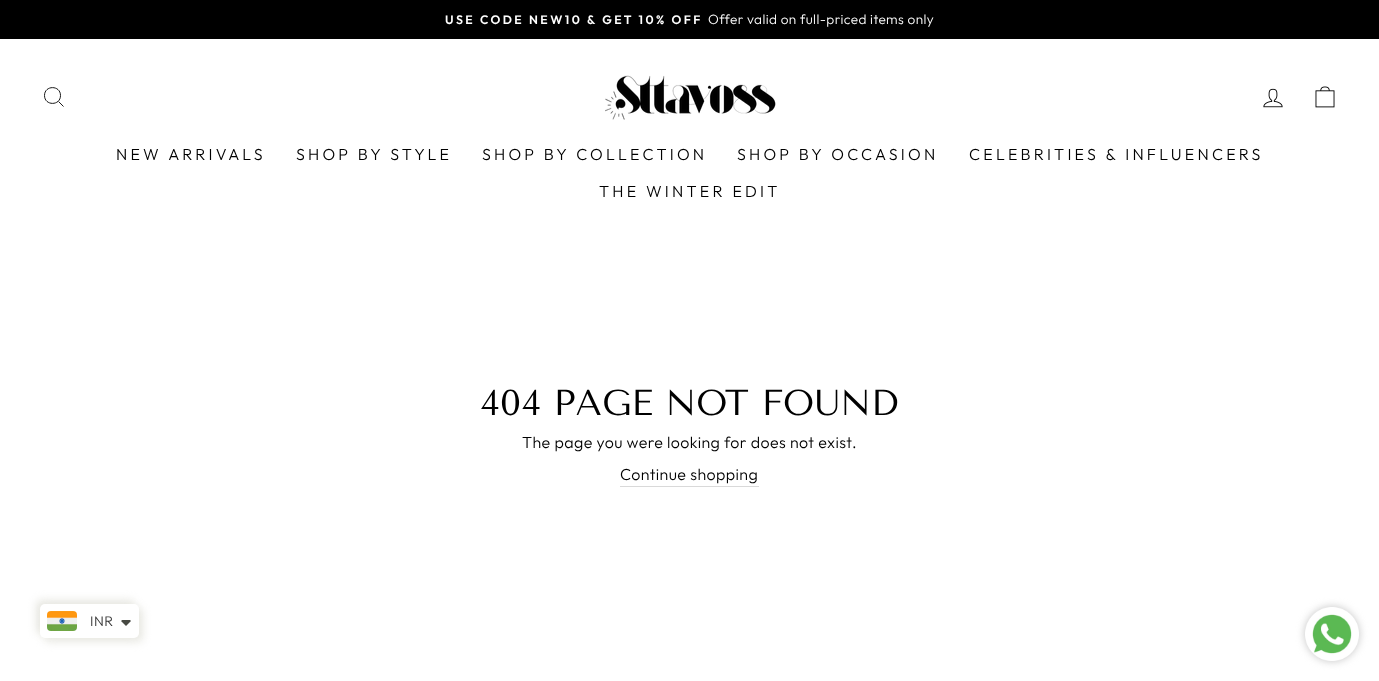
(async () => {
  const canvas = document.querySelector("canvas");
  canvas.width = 1379;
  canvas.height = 681;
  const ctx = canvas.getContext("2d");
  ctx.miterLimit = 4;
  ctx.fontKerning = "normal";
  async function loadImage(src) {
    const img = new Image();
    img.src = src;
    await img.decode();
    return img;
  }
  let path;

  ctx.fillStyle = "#ffffff";
  ctx.fillRect(0, 0, 1379, 681);
  ctx.fillStyle = "#000000";
  ctx.fillRect(0, 0, 1379, 39);
  path = new Path2D("M60.5 95.5C60.5 106 44.5 106 44.5 95.5C44.5 85 60.5 85 60.5 95.5ZM63.5 106.5L58.5 101.5");
  ctx.strokeStyle = "#000000";
  ctx.lineWidth = 0.9;
  ctx.stroke(path);
  ctx.drawImage(await loadImage("img/1.png"), 605, 75, 171, 45);
  ctx.drawImage(await loadImage("img/2.png"), 1263, 88, 20, 20);
  ctx.drawImage(await loadImage("img/3.png"), 1315, 86, 20, 22);
  ctx.fillStyle = "#d9d9d9";
  ctx.fillRect(620, 486, 139, 1);
  ctx.fillStyle = "#e8e8e2";
  ctx.filter = "blur(4.5px)";
  ctx.beginPath();
  ctx.roundRect(36, 600, 99, 34, 5);
  ctx.fill();
  ctx.filter = "none";
  ctx.filter = "blur(4.5px)";
  ctx.beginPath();
  ctx.roundRect(44, 608, 99, 34, 5);
  ctx.fill();
  ctx.filter = "none";
  ctx.fillStyle = "#ffffff";
  ctx.beginPath();
  ctx.roundRect(40, 604, 99, 34, 5);
  ctx.fill();
  ctx.drawImage(await loadImage("img/4.png"), 47, 611, 30, 20);
  ctx.fillStyle = "#474942";
  path = new Path2D("M123 620C122 620 121.5 620.5 121 621L126 626L131 621L130 620Z");
  ctx.fill(path);
  ctx.fillStyle = "#c2c2c2";
  ctx.filter = "blur(4px)";
  ctx.beginPath();
  ctx.roundRect(1305, 607, 54, 54, 27);
  ctx.fill();
  ctx.filter = "none";
  ctx.drawImage(await loadImage("img/5.png"), 1305, 607, 54, 54);
  ctx.letterSpacing = "2.45px";
  ctx.font = "600 12.25px Outfit";
  ctx.fillStyle = "#ffffff";
  ctx.fillText("USE CODE NEW10 & GET 10% OFF", 445, 24);
  ctx.letterSpacing = "0.4px";
  ctx.font = "300 13.6px Outfit";
  ctx.fillText("Offer valid on full-priced items only", 708, 24);
  ctx.letterSpacing = "3.2px";
  ctx.font = "300 16px Outfit";
  ctx.fillStyle = "#000000";
  for (const [text, x, y] of [
    ["NEW ARRIVALS", 116, 160],
    ["SHOP BY STYLE", 296, 160],
    ["SHOP BY COLLECTION", 482, 160],
    ["SHOP BY OCCASION", 737, 160],
    ["CELEBRITIES & INFLUENCERS", 969, 160],
    ["THE WINTER EDIT", 599, 197],
  ]) {
    ctx.fillText(text, x, y);
  }
  ctx.letterSpacing = "0px";
  ctx.font = "36px Tenor Sans";
  ctx.fillText("404 PAGE NOT FOUND", 480, 415);
  ctx.letterSpacing = "0.4px";
  ctx.font = "300 16px Outfit";
  ctx.fillText("The page you were looking for does not exist.", 522, 448);
  ctx.fillText("Continue shopping", 620, 480);
  ctx.font = "300 14px Outfit";
  ctx.fillStyle = "#333333";
  ctx.fillText("INR", 90, 626);
})();
